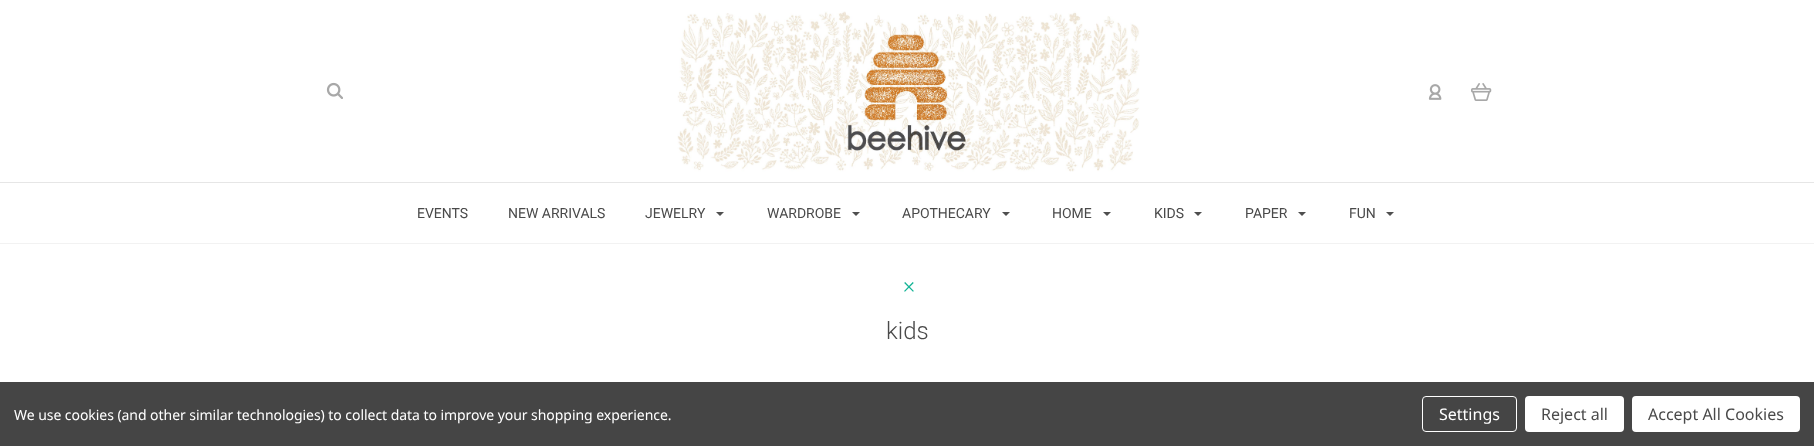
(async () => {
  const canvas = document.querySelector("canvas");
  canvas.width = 1814;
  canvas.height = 446;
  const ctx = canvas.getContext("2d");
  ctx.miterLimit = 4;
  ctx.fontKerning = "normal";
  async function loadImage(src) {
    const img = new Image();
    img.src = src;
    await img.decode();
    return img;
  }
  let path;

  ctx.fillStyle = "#ffffff";
  ctx.fillRect(0, 0, 1814, 446);
  ctx.fillStyle = "#e6e6e6";
  ctx.fillRect(0, 182, 1814, 1);
  ctx.drawImage(await loadImage("img/1.png"), 326, 82, 17, 17);
  ctx.drawImage(await loadImage("img/2.png"), 677, 11, 463, 161);
  ctx.drawImage(await loadImage("img/3.png"), 1428, 84, 14, 16);
  ctx.drawImage(await loadImage("img/4.png"), 1471, 83, 21, 18);
  ctx.fillStyle = "#f2f2f2";
  ctx.fillRect(0, 243, 1814, 1);
  ctx.fillStyle = "#4f4f4f";
  path = new Path2D("M716 212H724L720 216Z");
  ctx.fill(path);
  path = new Path2D("M852 212H860L856 216Z");
  ctx.fill(path);
  path = new Path2D("M1002 212H1010L1006 216Z");
  ctx.fill(path);
  path = new Path2D("M1103 212H1111L1107 216Z");
  ctx.fill(path);
  path = new Path2D("M1194 212H1202L1198 216Z");
  ctx.fill(path);
  path = new Path2D("M1298 212H1306L1302 216Z");
  ctx.fill(path);
  path = new Path2D("M1386 212H1394L1390 216Z");
  ctx.fill(path);
  ctx.fillStyle = "#454545";
  ctx.fillRect(0, 382, 1814, 64);
  ctx.beginPath();
  ctx.roundRect(1422.5, 396.5, 94, 35, 3.5);
  ctx.strokeStyle = "#ffffff";
  ctx.stroke();
  ctx.fillStyle = "#ffffff";
  ctx.beginPath();
  ctx.roundRect(1525, 396, 99, 36, 4);
  ctx.fill();
  ctx.beginPath();
  ctx.roundRect(1632, 396, 168, 36, 4);
  ctx.fill();
  ctx.font = "14px Roboto";
  ctx.fillStyle = "#4a4a4a";
  for (const [text, x, y] of [
    ["EVENTS", 417, 218],
    ["NEW ARRIVALS", 508, 218],
    ["JEWELRY", 645, 218],
    ["WARDROBE", 767, 218],
    ["APOTHECARY", 902, 218],
    ["HOME", 1052, 218],
    ["KIDS", 1154, 218],
    ["PAPER", 1245, 218],
    ["FUN", 1349, 218],
  ]) {
    ctx.fillText(text, x, y);
  }
  ctx.font = "300 23px Roboto";
  ctx.fillStyle = "#14b496";
  ctx.fillText("×", 903, 293);
  ctx.font = "300 24px Roboto";
  ctx.fillStyle = "#4a4a4a";
  ctx.fillText("kids", 886, 339);
  ctx.letterSpacing = "-0.05px";
  ctx.font = "14px Noto Sans";
  ctx.fillStyle = "#ffffff";
  ctx.fillText("We use cookies (and other similar technologies) to collect data to improve your shopping experience.", 14, 420);
  ctx.letterSpacing = "0px";
  ctx.font = "16px Noto Sans";
  ctx.fillText("Settings", 1439, 420);
  ctx.fillStyle = "#4a4a4a";
  ctx.fillText("Reject all", 1541, 420);
  ctx.fillText("Accept All Cookies", 1648, 420);
})();
